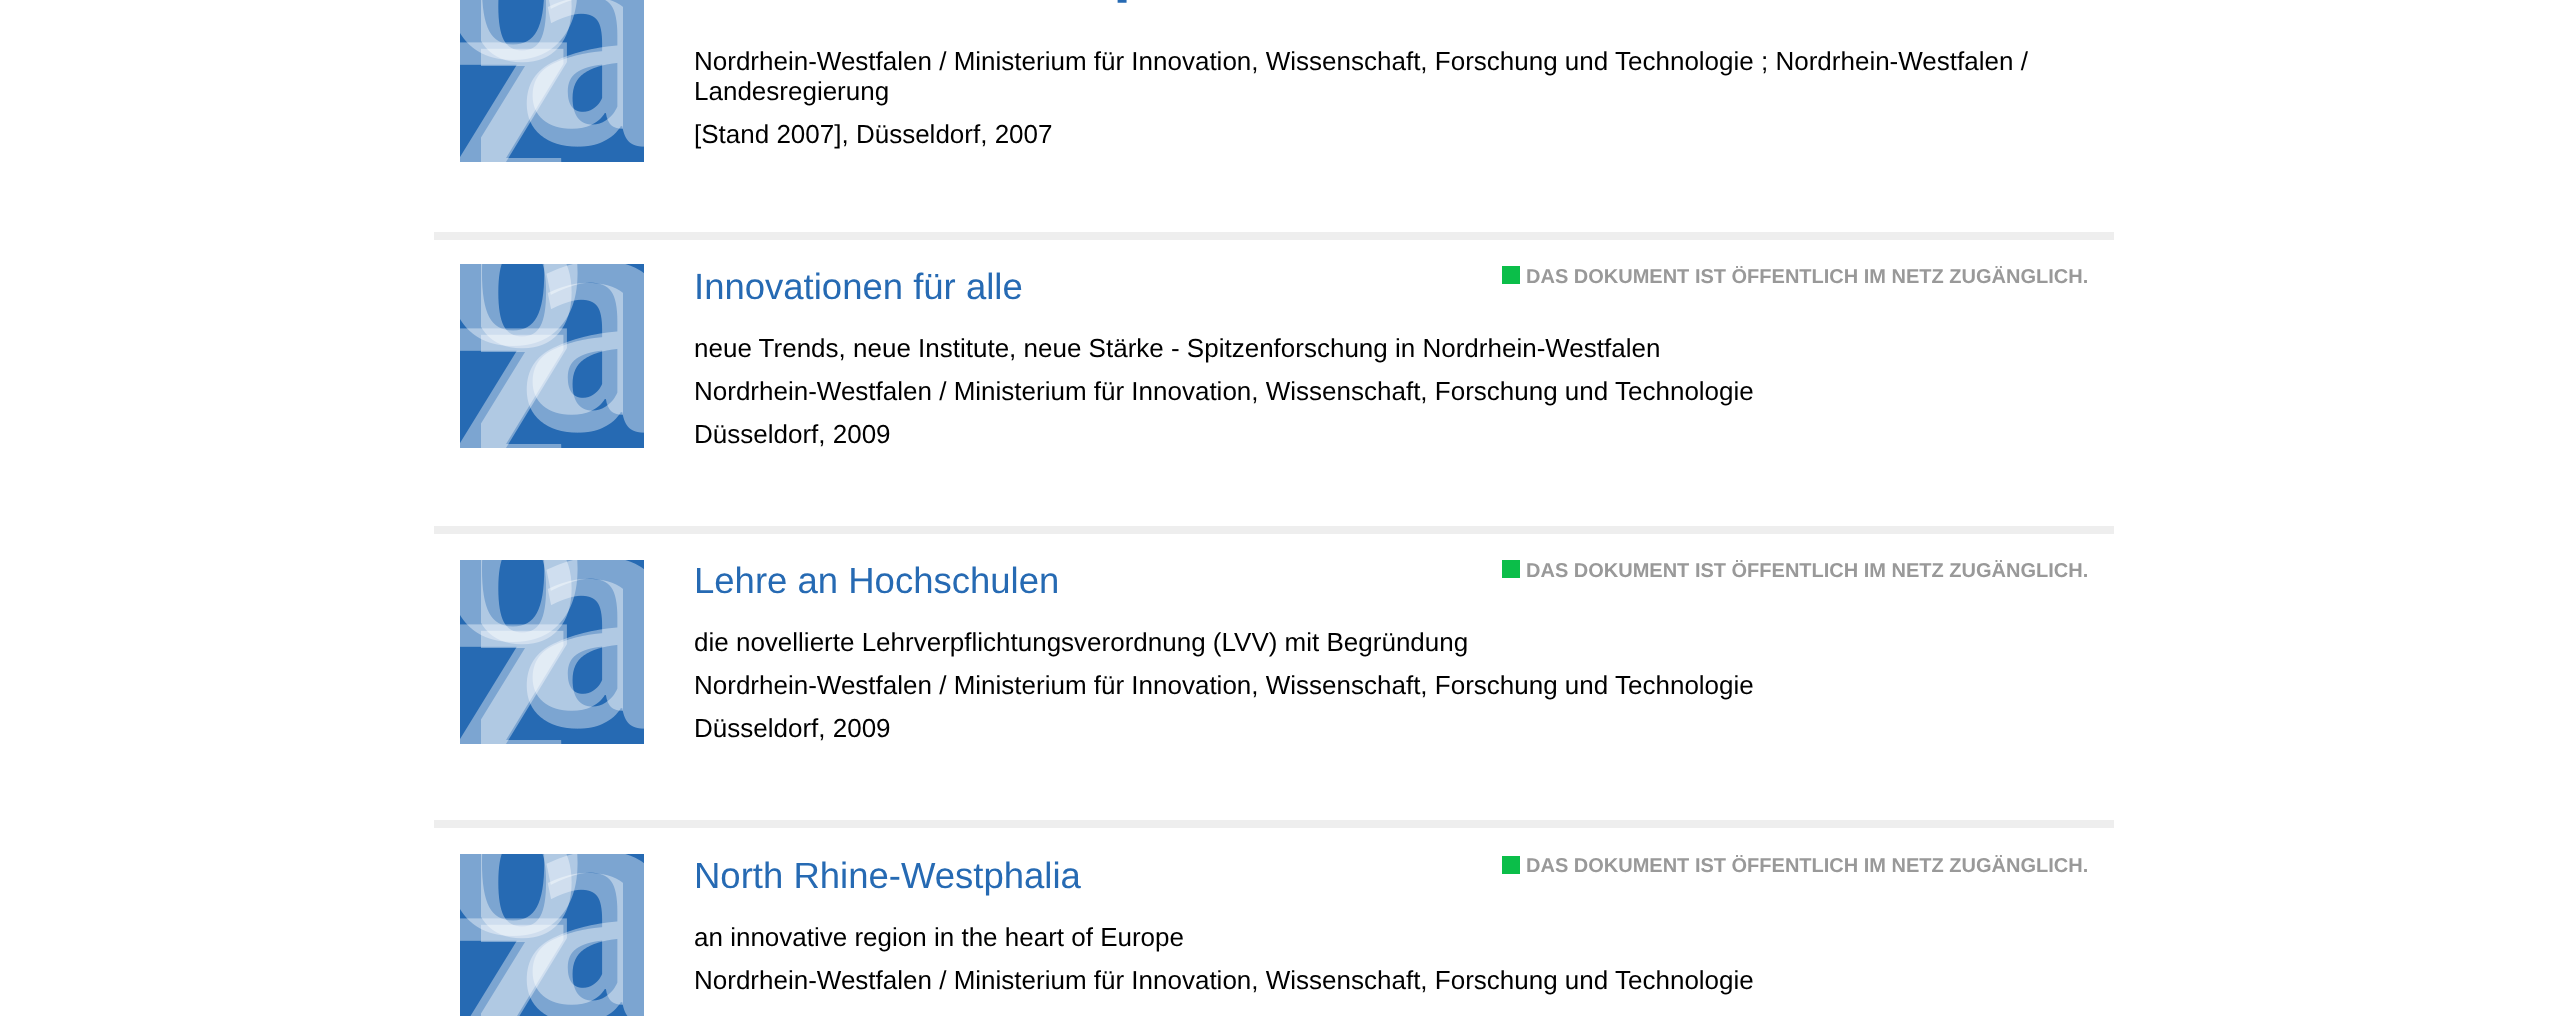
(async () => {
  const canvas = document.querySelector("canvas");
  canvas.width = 2573;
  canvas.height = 1016;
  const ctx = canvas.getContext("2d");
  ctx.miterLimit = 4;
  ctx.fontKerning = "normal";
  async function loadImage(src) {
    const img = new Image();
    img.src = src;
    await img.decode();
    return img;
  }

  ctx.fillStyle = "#ffffff";
  ctx.fillRect(0, 0, 2573, 1016);
  ctx.fillStyle = "#266ab3";
  ctx.fillRect(460, 0, 184, 162);
  ctx.drawImage(await loadImage("img/1.png"), 460, 0, 184, 162);
  ctx.drawImage(await loadImage("img/2.png"), 481, 0, 142, 162);
  ctx.fillStyle = "#eeeeee";
  ctx.fillRect(434, 232, 1680, 8);
  ctx.fillStyle = "#266ab3";
  ctx.fillRect(460, 264, 184, 184);
  ctx.drawImage(await loadImage("img/3.png"), 460, 264, 184, 184);
  ctx.drawImage(await loadImage("img/4.png"), 481, 264, 142, 184);
  for (const [x, y, w, h, color] of [
    [1502, 266, 18, 18, "#0bbe49"],
    [434, 526, 1680, 8, "#eeeeee"],
    [460, 560, 184, 184, "#266ab3"],
  ]) {
    ctx.fillStyle = color;
    ctx.fillRect(x, y, w, h);
  }
  ctx.drawImage(await loadImage("img/3.png"), 460, 560, 184, 184);
  ctx.drawImage(await loadImage("img/4.png"), 481, 560, 142, 184);
  for (const [x, y, w, h, color] of [
    [1502, 560, 18, 18, "#0bbe49"],
    [434, 820, 1680, 8, "#eeeeee"],
    [460, 854, 184, 162, "#266ab3"],
  ]) {
    ctx.fillStyle = color;
    ctx.fillRect(x, y, w, h);
  }
  ctx.drawImage(await loadImage("img/5.png"), 460, 854, 184, 162);
  ctx.drawImage(await loadImage("img/6.png"), 481, 854, 142, 162);
  ctx.fillStyle = "#0bbe49";
  ctx.fillRect(1502, 856, 18, 18);
  ctx.font = "36.5px Liberation Sans";
  ctx.fillStyle = "#266ab3";
  ctx.fillText("-", 1116, 11);
  ctx.font = "26px Liberation Sans";
  ctx.fillStyle = "#000000";
  for (const [text, x, y] of [
    ["Nordrhein-Westfalen / Ministerium für Innovation, Wissenschaft, Forschung und Technologie ; Nordrhein-Westfalen /", 694, 70],
    ["Landesregierung", 694, 100],
    ["[Stand 2007], Düsseldorf, 2007", 694, 143],
  ]) {
    ctx.fillText(text, x, y);
  }
  ctx.font = "36.5px Liberation Sans";
  ctx.fillStyle = "#266ab3";
  ctx.fillText("Innovationen für alle", 694, 299);
  ctx.font = "26px Liberation Sans";
  ctx.fillStyle = "#000000";
  for (const [text, x, y] of [
    ["neue Trends, neue Institute, neue Stärke - Spitzenforschung in Nordrhein-Westfalen", 694, 357],
    ["Nordrhein-Westfalen / Ministerium für Innovation, Wissenschaft, Forschung und Technologie", 694, 400],
    ["Düsseldorf, 2009", 694, 443],
  ]) {
    ctx.fillText(text, x, y);
  }
  ctx.font = "bold 20px Liberation Sans";
  ctx.fillStyle = "#999999";
  ctx.fillText("DAS DOKUMENT IST ÖFFENTLICH IM NETZ ZUGÄNGLICH.", 1526, 283);
  ctx.font = "36.5px Liberation Sans";
  ctx.fillStyle = "#266ab3";
  ctx.fillText("Lehre an Hochschulen", 694, 593);
  ctx.font = "26px Liberation Sans";
  ctx.fillStyle = "#000000";
  for (const [text, x, y] of [
    ["die novellierte Lehrverpflichtungsverordnung (LVV) mit Begründung", 694, 651],
    ["Nordrhein-Westfalen / Ministerium für Innovation, Wissenschaft, Forschung und Technologie", 694, 694],
    ["Düsseldorf, 2009", 694, 737],
  ]) {
    ctx.fillText(text, x, y);
  }
  ctx.font = "bold 20px Liberation Sans";
  ctx.fillStyle = "#999999";
  ctx.fillText("DAS DOKUMENT IST ÖFFENTLICH IM NETZ ZUGÄNGLICH.", 1526, 577);
  ctx.font = "36.5px Liberation Sans";
  ctx.fillStyle = "#266ab3";
  ctx.fillText("North Rhine-Westphalia", 694, 888);
  ctx.font = "26px Liberation Sans";
  ctx.fillStyle = "#000000";
  ctx.fillText("an innovative region in the heart of Europe", 694, 946);
  ctx.fillText("Nordrhein-Westfalen / Ministerium für Innovation, Wissenschaft, Forschung und Technologie", 694, 989);
  ctx.font = "bold 20px Liberation Sans";
  ctx.fillStyle = "#999999";
  ctx.fillText("DAS DOKUMENT IST ÖFFENTLICH IM NETZ ZUGÄNGLICH.", 1526, 872);
})();
